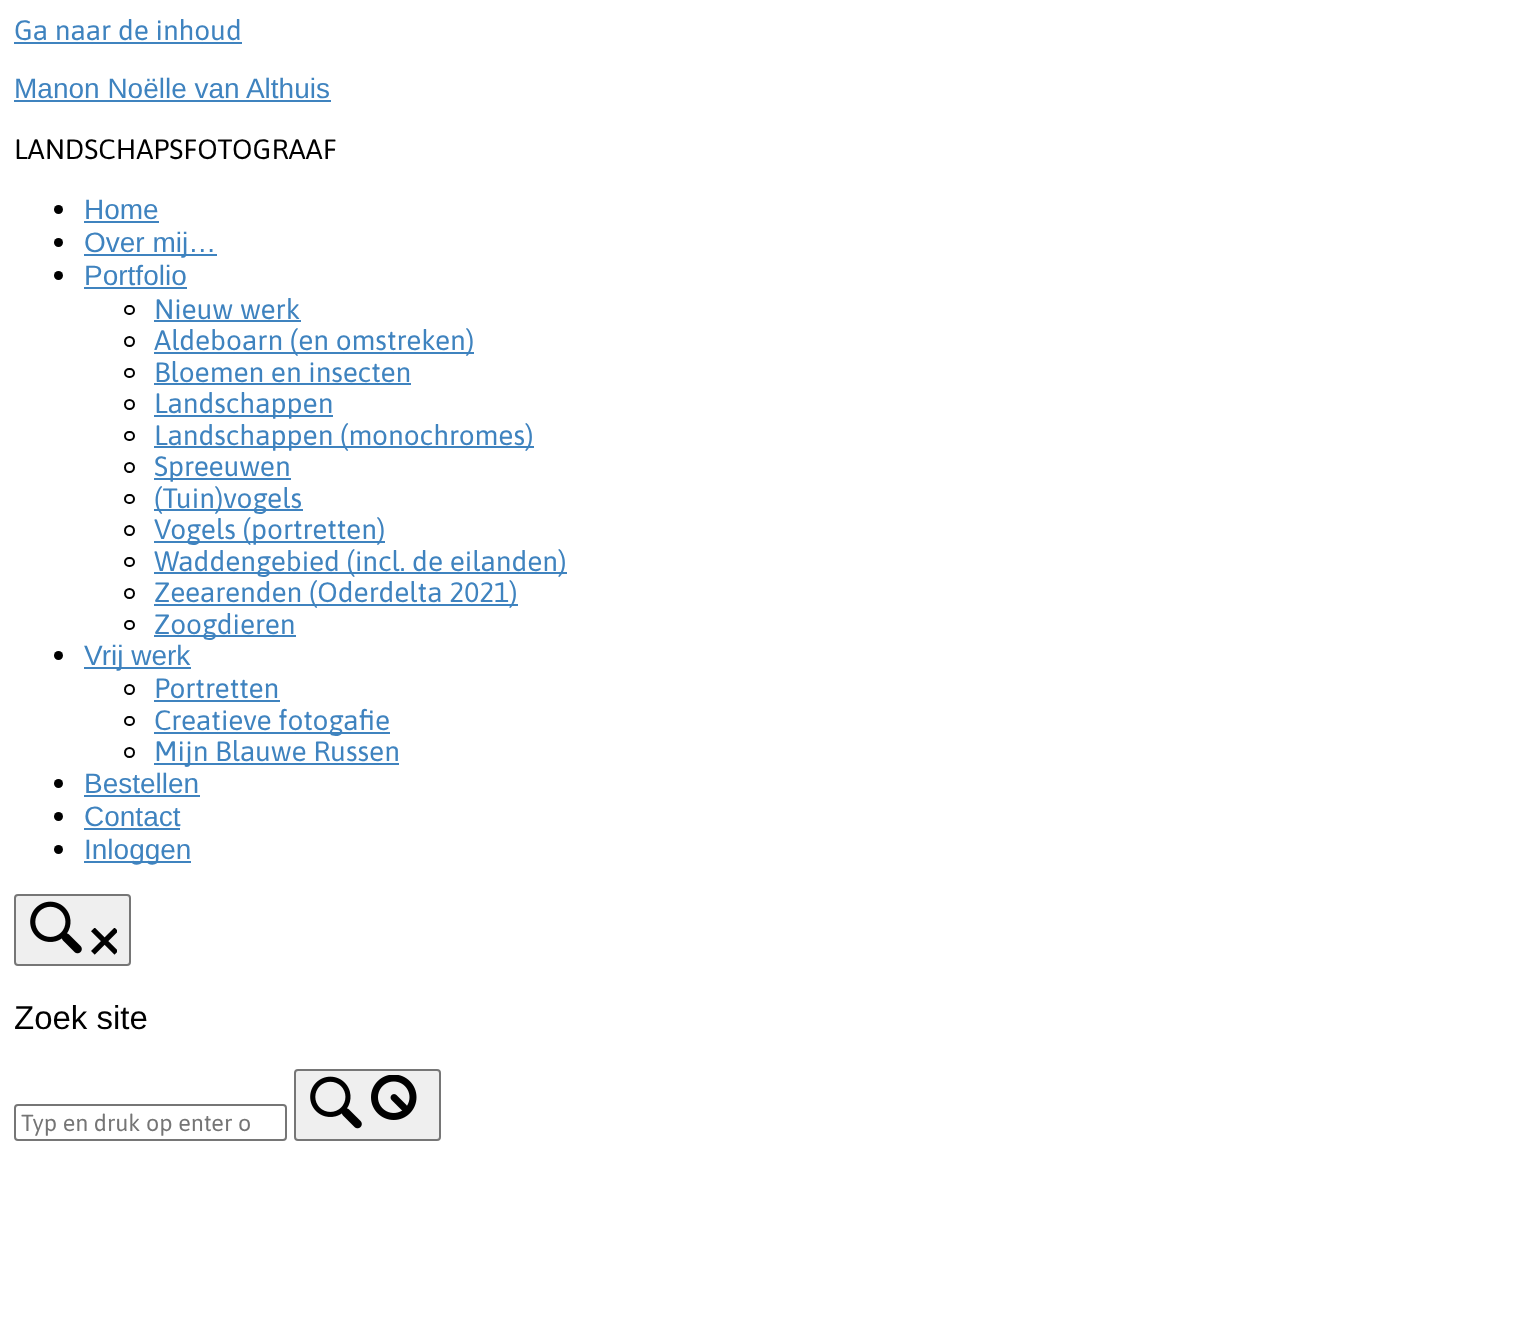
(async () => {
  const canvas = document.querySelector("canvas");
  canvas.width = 1513;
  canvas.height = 1331;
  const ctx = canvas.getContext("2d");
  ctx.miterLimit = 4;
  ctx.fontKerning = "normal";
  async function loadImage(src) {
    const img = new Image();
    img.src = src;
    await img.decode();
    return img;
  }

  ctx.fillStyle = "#ffffff";
  ctx.fillRect(0, 0, 1513, 1331);
  ctx.fillStyle = "#3f83bf";
  ctx.fillRect(14, 42, 228, 2);
  ctx.fillRect(14, 100, 317, 2);
  ctx.fillStyle = "#000000";
  ctx.beginPath();
  ctx.arc(58.5, 209.5, 4.5, 0, Math.PI * 2);
  ctx.fill();
  ctx.fillStyle = "#3f83bf";
  ctx.fillRect(84, 221, 75, 2);
  ctx.fillStyle = "#000000";
  ctx.beginPath();
  ctx.arc(58.5, 242.5, 4.5, 0, Math.PI * 2);
  ctx.fill();
  ctx.fillStyle = "#3f83bf";
  ctx.fillRect(84, 254, 133, 2);
  ctx.fillStyle = "#000000";
  ctx.beginPath();
  ctx.arc(58.5, 275.5, 4.5, 0, Math.PI * 2);
  ctx.fill();
  ctx.fillStyle = "#3f83bf";
  ctx.fillRect(84, 287, 103, 2);
  ctx.beginPath();
  ctx.roundRect(125, 306, 9, 8, 4);
  ctx.strokeStyle = "#000000";
  ctx.lineWidth = 2;
  ctx.stroke();
  ctx.fillRect(154, 320, 147, 2);
  ctx.beginPath();
  ctx.arc(129.5, 341.5, 4.5, 0, Math.PI * 2);
  ctx.stroke();
  ctx.fillRect(154, 352, 320, 2);
  ctx.beginPath();
  ctx.roundRect(125, 369, 9, 8, 4);
  ctx.stroke();
  ctx.fillRect(154, 383, 257, 2);
  ctx.beginPath();
  ctx.arc(129.5, 404.5, 4.5, 0, Math.PI * 2);
  ctx.stroke();
  ctx.fillRect(154, 415, 179, 2);
  ctx.beginPath();
  ctx.roundRect(125, 432, 9, 8, 4);
  ctx.stroke();
  ctx.fillRect(154, 446, 380, 2);
  ctx.beginPath();
  ctx.arc(129.5, 467.5, 4.5, 0, Math.PI * 2);
  ctx.stroke();
  ctx.fillRect(154, 478, 137, 2);
  ctx.beginPath();
  ctx.roundRect(125, 495, 9, 8, 4);
  ctx.stroke();
  ctx.fillRect(154, 509, 149, 2);
  ctx.beginPath();
  ctx.arc(129.5, 530.5, 4.5, 0, Math.PI * 2);
  ctx.stroke();
  ctx.fillRect(154, 541, 231, 2);
  ctx.beginPath();
  ctx.roundRect(125, 558, 9, 8, 4);
  ctx.stroke();
  ctx.fillRect(154, 572, 413, 2);
  ctx.beginPath();
  ctx.arc(129.5, 593.5, 4.5, 0, Math.PI * 2);
  ctx.stroke();
  ctx.fillRect(154, 604, 364, 2);
  ctx.beginPath();
  ctx.roundRect(125, 621, 9, 8, 4);
  ctx.stroke();
  ctx.fillRect(154, 635, 142, 2);
  ctx.fillStyle = "#000000";
  ctx.beginPath();
  ctx.arc(58.5, 655.5, 4.5, 0, Math.PI * 2);
  ctx.fill();
  ctx.fillStyle = "#3f83bf";
  ctx.fillRect(84, 667, 107, 2);
  ctx.beginPath();
  ctx.arc(129.5, 689.5, 4.5, 0, Math.PI * 2);
  ctx.stroke();
  ctx.fillRect(154, 700, 126, 2);
  ctx.beginPath();
  ctx.roundRect(125, 717, 9, 8, 4);
  ctx.stroke();
  ctx.fillRect(154, 732, 236, 2);
  ctx.beginPath();
  ctx.arc(129.5, 752.5, 4.5, 0, Math.PI * 2);
  ctx.stroke();
  ctx.fillRect(154, 763, 245, 2);
  ctx.fillStyle = "#000000";
  ctx.beginPath();
  ctx.arc(58.5, 783.5, 4.5, 0, Math.PI * 2);
  ctx.fill();
  ctx.fillStyle = "#3f83bf";
  ctx.fillRect(84, 795, 116, 2);
  ctx.fillStyle = "#000000";
  ctx.beginPath();
  ctx.arc(58.5, 816.5, 4.5, 0, Math.PI * 2);
  ctx.fill();
  ctx.fillStyle = "#3f83bf";
  ctx.fillRect(84, 828, 96, 2);
  ctx.fillStyle = "#000000";
  ctx.beginPath();
  ctx.arc(58.5, 849.5, 4.5, 0, Math.PI * 2);
  ctx.fill();
  ctx.fillStyle = "#3f83bf";
  ctx.fillRect(84, 861, 107, 2);
  ctx.fillStyle = "#efefef";
  ctx.beginPath();
  ctx.roundRect(15, 895, 115, 70, 3);
  ctx.fill();
  ctx.strokeStyle = "#767676";
  ctx.stroke();
  ctx.drawImage(await loadImage("img/1.png"), 30, 901, 52, 53);
  ctx.drawImage(await loadImage("img/2.png"), 91, 928, 26, 27);
  ctx.beginPath();
  ctx.roundRect(15, 1105, 271, 35, 3);
  ctx.stroke();
  ctx.beginPath();
  ctx.roundRect(295, 1070, 145, 70, 3);
  ctx.fill();
  ctx.stroke();
  ctx.drawImage(await loadImage("img/1.png"), 310, 1076, 52, 53);
  ctx.drawImage(await loadImage("img/3.png"), 371, 1075, 46, 45);
  ctx.font = "28px Asap";
  ctx.fillStyle = "#3f83bf";
  ctx.fillText("Ga naar de inhoud", 14, 40);
  ctx.font = "28px Liberation Sans";
  ctx.fillText("Manon Noëlle van Althuis", 14, 98);
  ctx.font = "28px Asap";
  ctx.fillStyle = "#000000";
  ctx.fillText("LANDSCHAPSFOTOGRAAF", 14, 159);
  ctx.font = "28px Liberation Sans";
  ctx.fillStyle = "#3f83bf";
  for (const [text, x, y] of [
    ["Home", 84, 219],
    ["Over mij…", 84, 252],
    ["Portfolio", 84, 285],
  ]) {
    ctx.fillText(text, x, y);
  }
  ctx.font = "28px Asap";
  for (const [text, x, y] of [
    ["Nieuw werk", 154, 319],
    ["Aldeboarn (en omstreken)", 154, 350],
    ["Bloemen en insecten", 154, 382],
    ["Landschappen", 154, 413],
    ["Landschappen (monochromes)", 154, 445],
    ["Spreeuwen", 154, 476],
    ["(Tuin)vogels", 154, 508],
    ["Vogels (portretten)", 154, 539],
    ["Waddengebied (incl. de eilanden)", 154, 571],
    ["Zeearenden (Oderdelta 2021)", 154, 602],
    ["Zoogdieren", 154, 634],
  ]) {
    ctx.fillText(text, x, y);
  }
  ctx.font = "28px Liberation Sans";
  ctx.fillText("Vrij werk", 84, 665);
  ctx.font = "28px Asap";
  for (const [text, x, y] of [
    ["Portretten", 154, 698],
    ["Creatieve fotogafie", 154, 730],
    ["Mijn Blauwe Russen", 154, 761],
  ]) {
    ctx.fillText(text, x, y);
  }
  ctx.font = "28px Liberation Sans";
  for (const [text, x, y] of [
    ["Bestellen", 84, 793],
    ["Contact", 84, 826],
    ["Inloggen", 84, 859],
  ]) {
    ctx.fillText(text, x, y);
  }
  ctx.font = "33px Liberation Sans";
  ctx.fillStyle = "#000000";
  ctx.fillText("Zoek site", 14, 1029);
  ctx.font = "23.25px Asap";
  ctx.fillStyle = "#757575";
  ctx.fillText("Typ en druk op enter o", 21, 1131);
})();
